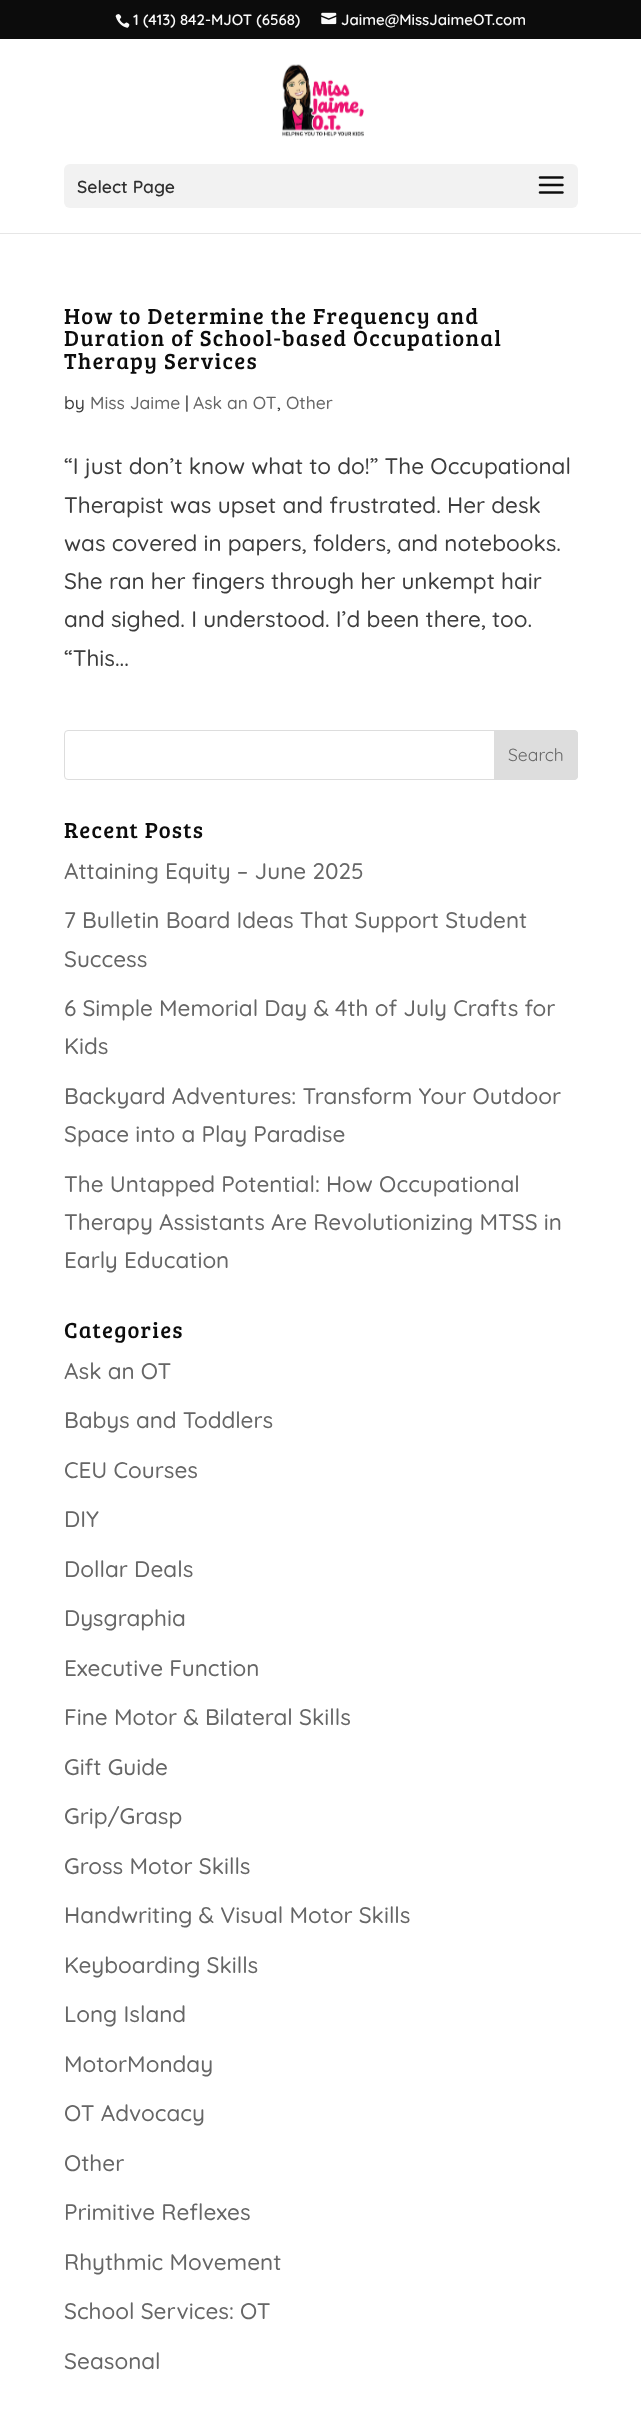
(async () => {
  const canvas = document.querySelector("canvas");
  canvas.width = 641;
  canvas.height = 2411;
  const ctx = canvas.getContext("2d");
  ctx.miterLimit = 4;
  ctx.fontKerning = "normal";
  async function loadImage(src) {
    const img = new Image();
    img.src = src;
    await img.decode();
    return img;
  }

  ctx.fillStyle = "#ffffff";
  ctx.fillRect(0, 0, 641, 2411);
  ctx.fillStyle = "#0c0c0c";
  ctx.fillRect(0, 0, 641, 39);
  ctx.drawImage(await loadImage("img/1.png"), 115, 14, 15, 14);
  ctx.drawImage(await loadImage("img/2.png"), 321, 12, 16, 13);
  ctx.fillStyle = "#e6e6e6";
  ctx.fillRect(0, 233, 641, 1);
  ctx.drawImage(await loadImage("img/3.png"), 282, 64, 82, 73);
  ctx.fillStyle = "#f2f2f2";
  ctx.beginPath();
  ctx.roundRect(64, 164, 514, 44, 6);
  ctx.fill();
  ctx.drawImage(await loadImage("img/4.png"), 538, 176, 26, 18);
  ctx.beginPath();
  ctx.roundRect(64.5, 730.5, 513, 49, 3.5);
  ctx.strokeStyle = "#dddddd";
  ctx.stroke();
  ctx.fillStyle = "#dddddd";
  ctx.beginPath();
  ctx.roundRect(494.5, 730.5, 83, 49, [0, 3.5, 3.5, 0]);
  ctx.fill();
  ctx.stroke();
  ctx.font = "600 15px Quicksand";
  ctx.fillStyle = "#fafafa";
  ctx.fillText("1 (413) 842-MJOT (6568)", 133, 25);
  ctx.fillText("Jaime@MissJaimeOT.com", 341, 25);
  ctx.font = "600 17.5px Quicksand";
  ctx.fillStyle = "#2f2f2f";
  ctx.fillText("Select Page", 77, 193);
  ctx.letterSpacing = "1.25px";
  ctx.font = "22.5px Bree Serif";
  ctx.fillStyle = "#0c0c0c";
  for (const [text, x, y] of [
    ["How to Determine the Frequency and", 64, 324],
    ["Duration of School-based Occupational", 64, 346],
    ["Therapy Services", 64, 369],
  ]) {
    ctx.fillText(text, x, y);
  }
  ctx.letterSpacing = "0px";
  ctx.font = "500 17.5px Quicksand";
  ctx.fillStyle = "#3d3d3d";
  ctx.fillText("by", 64, 409);
  ctx.fillStyle = "#666666";
  ctx.fillText("Miss Jaime", 90, 409);
  ctx.fillStyle = "#3d3d3d";
  ctx.fillText("|", 185, 409);
  ctx.fillStyle = "#666666";
  ctx.fillText("Ask an OT", 193, 409);
  ctx.fillStyle = "#3d3d3d";
  ctx.fillText(",", 277, 409);
  ctx.fillStyle = "#666666";
  ctx.fillText("Other", 286, 409);
  ctx.font = "500 22.5px Quicksand";
  ctx.fillStyle = "#3d3d3d";
  for (const [text, x, y] of [
    ["“I just don’t know what to do!” The Occupational", 64, 474],
    ["Therapist was upset and frustrated. Her desk", 64, 513],
    ["was covered in papers, folders, and notebooks.", 64, 551],
    ["She ran her fingers through her unkempt hair", 64, 589],
    ["and sighed. I understood. I’d been there, too.", 64, 627],
    ["“This...", 64, 666],
  ]) {
    ctx.fillText(text, x, y);
  }
  ctx.font = "17.5px Quicksand";
  ctx.fillStyle = "#666666";
  ctx.fillText("Search", 508, 761);
  ctx.letterSpacing = "1.25px";
  ctx.font = "22.5px Bree Serif";
  ctx.fillStyle = "#0c0c0c";
  ctx.fillText("Recent Posts", 64, 838);
  ctx.letterSpacing = "0px";
  ctx.font = "500 22.5px Quicksand";
  ctx.fillStyle = "#666666";
  for (const [text, x, y] of [
    ["Attaining Equity – June 2025", 64, 879],
    ["7 Bulletin Board Ideas That Support Student", 64, 928],
    ["Success", 64, 967],
    ["6 Simple Memorial Day & 4th of July Crafts for", 64, 1016],
    ["Kids", 64, 1054],
    ["Backyard Adventures: Transform Your Outdoor", 64, 1104],
    ["Space into a Play Paradise", 64, 1142],
    ["The Untapped Potential: How Occupational", 64, 1192],
    ["Therapy Assistants Are Revolutionizing MTSS in", 64, 1230],
    ["Early Education", 64, 1268],
  ]) {
    ctx.fillText(text, x, y);
  }
  ctx.letterSpacing = "1.25px";
  ctx.font = "22.5px Bree Serif";
  ctx.fillStyle = "#0c0c0c";
  ctx.fillText("Categories", 64, 1338);
  ctx.letterSpacing = "0px";
  ctx.font = "500 22.5px Quicksand";
  ctx.fillStyle = "#666666";
  for (const [text, x, y] of [
    ["Ask an OT", 64, 1379],
    ["Babys and Toddlers", 64, 1428],
    ["CEU Courses", 64, 1478],
    ["DIY", 64, 1527],
    ["Dollar Deals", 64, 1577],
    ["Dysgraphia", 64, 1626],
    ["Executive Function", 64, 1676],
    ["Fine Motor & Bilateral Skills", 64, 1725],
    ["Gift Guide", 64, 1775],
    ["Grip/Grasp", 64, 1824],
    ["Gross Motor Skills", 64, 1874],
    ["Handwriting & Visual Motor Skills", 64, 1923],
    ["Keyboarding Skills", 64, 1973],
    ["Long Island", 64, 2022],
    ["MotorMonday", 64, 2072],
    ["OT Advocacy", 64, 2121],
    ["Other", 64, 2171],
    ["Primitive Reflexes", 64, 2220],
    ["Rhythmic Movement", 64, 2270],
    ["School Services: OT", 64, 2319],
    ["Seasonal", 64, 2369],
  ]) {
    ctx.fillText(text, x, y);
  }
})();
